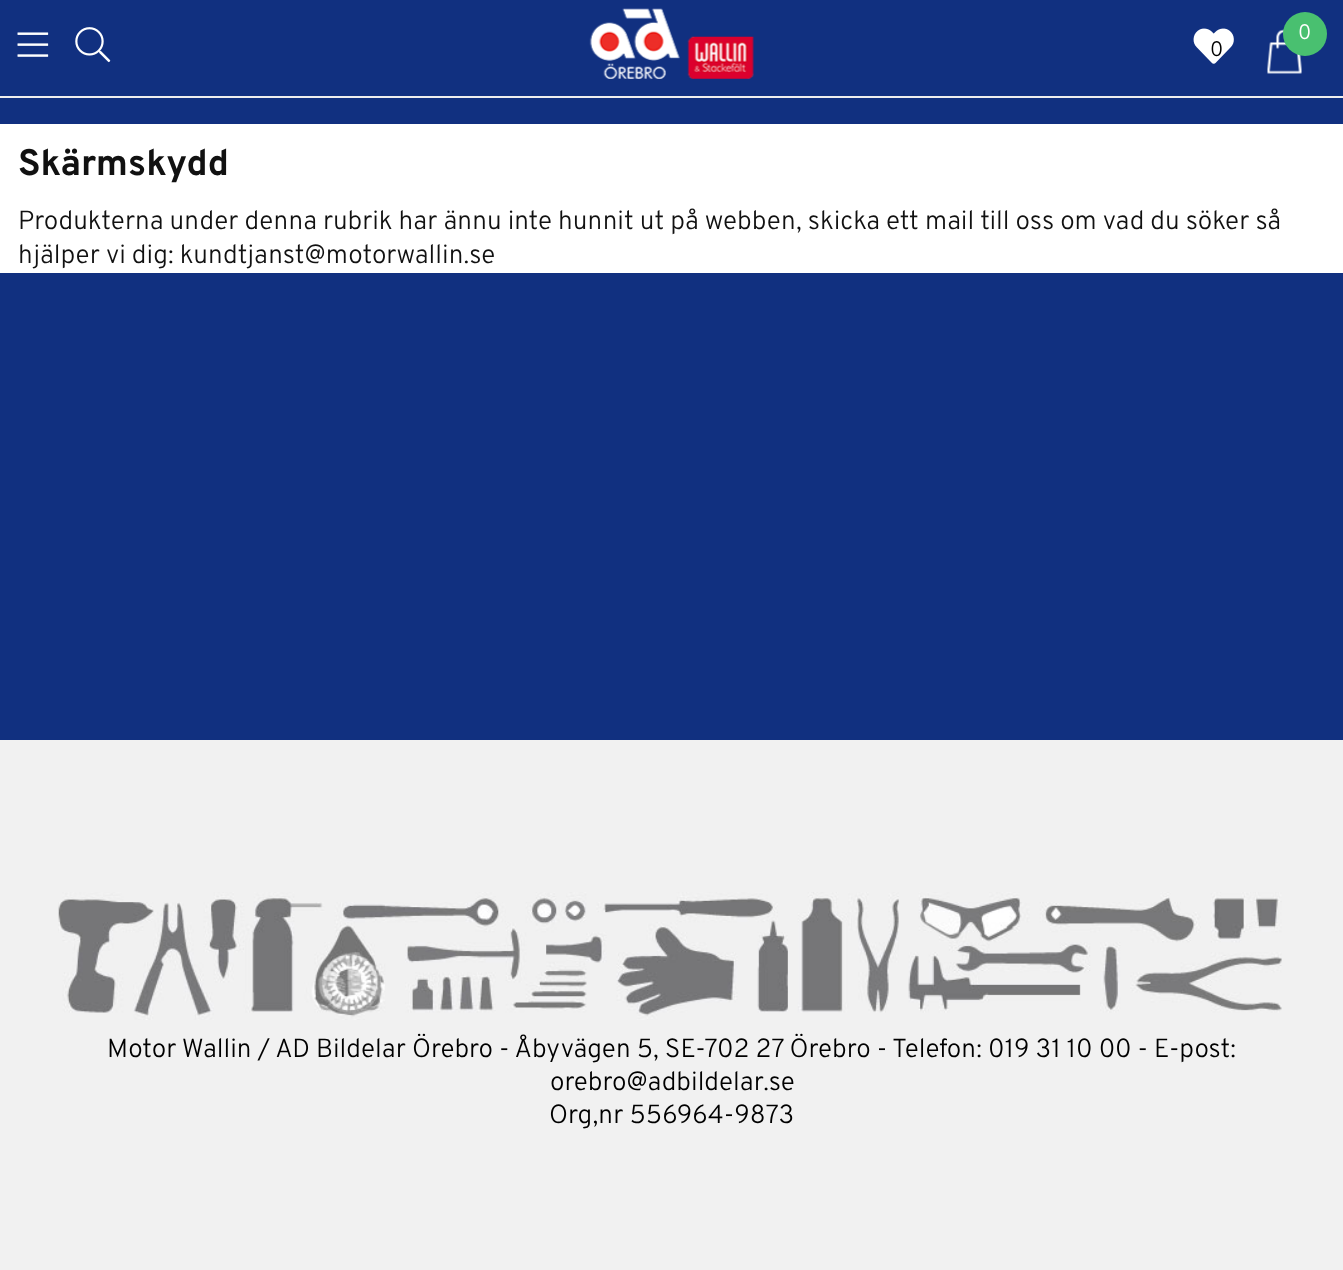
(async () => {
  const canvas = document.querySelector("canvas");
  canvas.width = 1343;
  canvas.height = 1270;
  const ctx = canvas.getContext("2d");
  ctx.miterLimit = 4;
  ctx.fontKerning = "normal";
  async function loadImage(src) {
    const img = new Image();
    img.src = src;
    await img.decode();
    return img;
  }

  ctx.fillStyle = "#113080";
  ctx.fillRect(0, 0, 1343, 1270);
  ctx.fillStyle = "#eeeeee";
  ctx.fillRect(0, 96, 1343, 2);
  ctx.drawImage(await loadImage("img/1.png"), 17, 32, 32, 25);
  ctx.drawImage(await loadImage("img/2.png"), 75, 27, 36, 36);
  ctx.drawImage(await loadImage("img/3.png"), 589, 8, 165, 71);
  ctx.drawImage(await loadImage("img/4.png"), 1193, 28, 41, 36);
  ctx.drawImage(await loadImage("img/5.png"), 1267, 29, 35, 45);
  ctx.fillStyle = "#49c070";
  ctx.beginPath();
  ctx.arc(1305, 34, 22, 0, Math.PI * 2);
  ctx.fill();
  ctx.fillStyle = "#ffffff";
  ctx.fillRect(0, 124, 1343, 149);
  ctx.fillStyle = "#f1f1f1";
  ctx.fillRect(0, 740, 1343, 530);
  ctx.drawImage(await loadImage("img/6.png"), 58, 892, 1224, 128);
  ctx.font = "300 21px Overpass";
  ctx.fillStyle = "#000000";
  ctx.fillText("0", 1210, 56);
  ctx.fillStyle = "#ffffff";
  ctx.fillText("0", 1298, 39);
  ctx.font = "bold 36.75px Overpass";
  ctx.fillStyle = "#111111";
  ctx.fillText("Skärmskydd", 18, 175);
  ctx.font = "300 26.25px Overpass";
  ctx.fillText("Produkterna under denna rubrik har ännu inte hunnit ut på webben, skicka ett mail till oss om vad du söker så", 18, 229);
  ctx.fillText("hjälper vi dig: kundtjanst@motorwallin.se", 18, 263);
  ctx.fillStyle = "#000000";
  for (const [text, x, y] of [
    ["Motor Wallin / AD Bildelar Örebro - Åbyvägen 5, SE-702 27 Örebro - Telefon: 019 31 10 00 - E-post:", 107, 1057],
    ["orebro@adbildelar.se", 550, 1090],
    ["Org,nr 556964-9873", 549, 1123],
  ]) {
    ctx.fillText(text, x, y);
  }
})();
